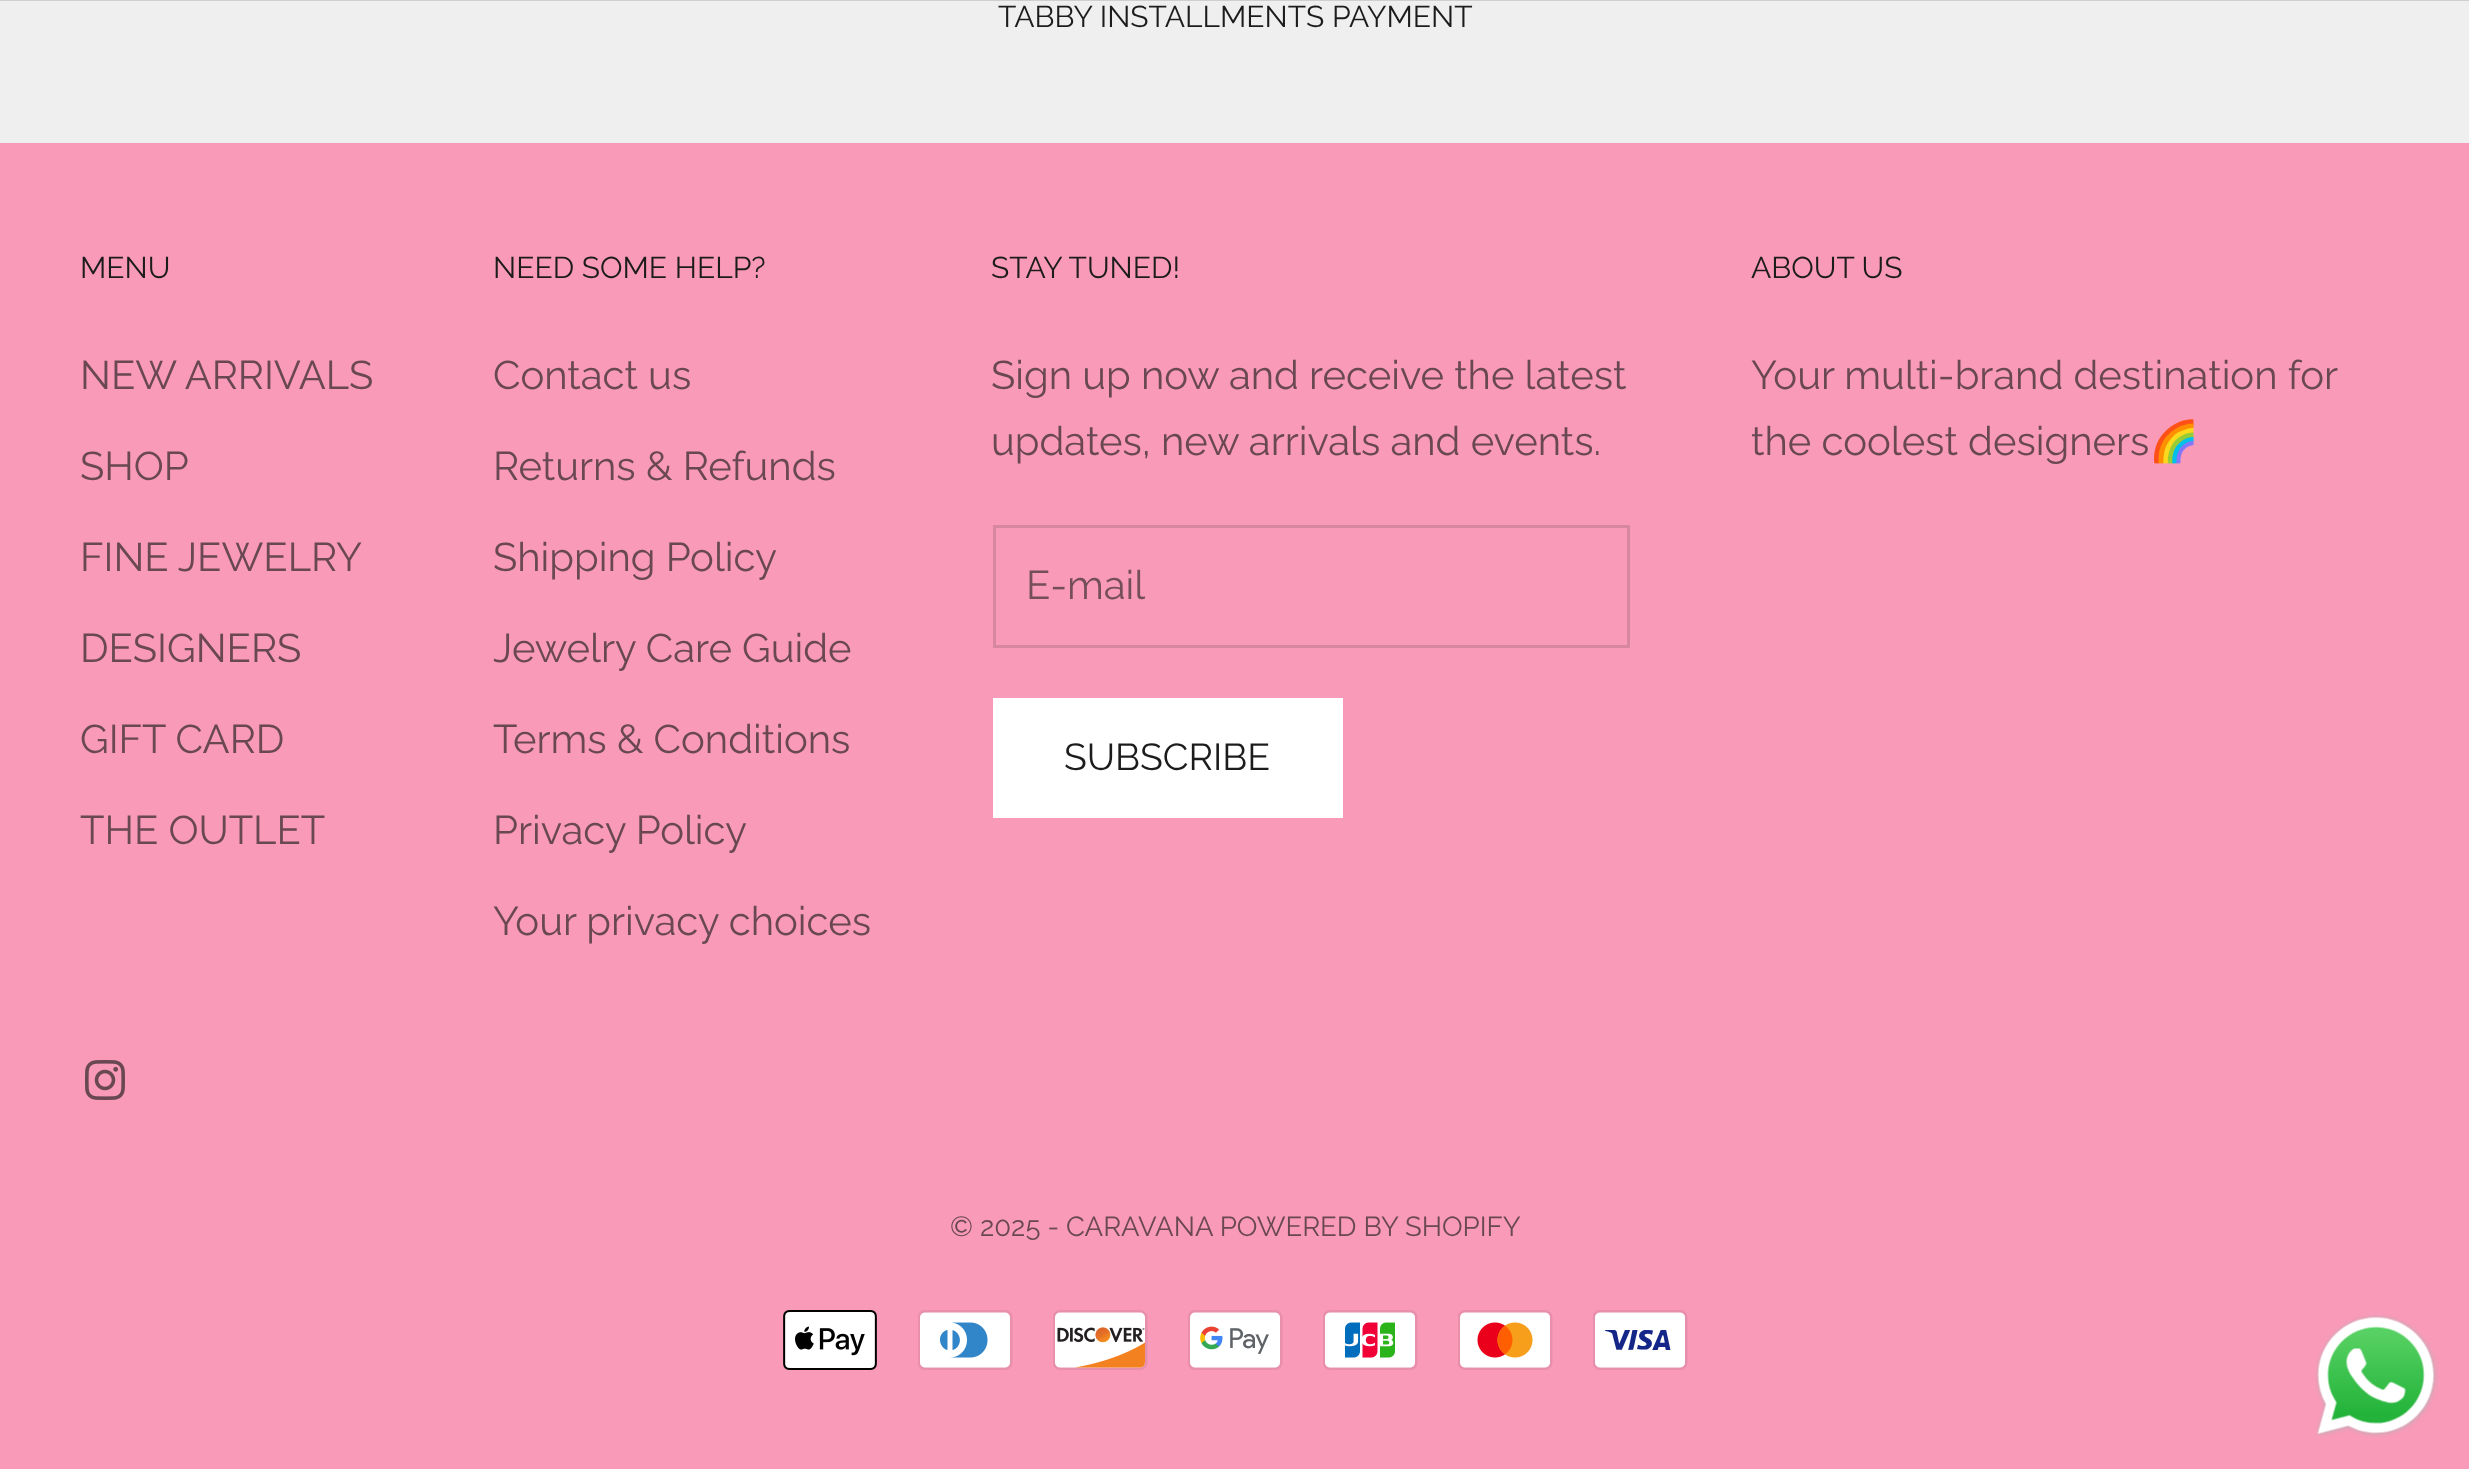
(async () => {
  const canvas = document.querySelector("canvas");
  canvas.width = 2469;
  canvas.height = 1469;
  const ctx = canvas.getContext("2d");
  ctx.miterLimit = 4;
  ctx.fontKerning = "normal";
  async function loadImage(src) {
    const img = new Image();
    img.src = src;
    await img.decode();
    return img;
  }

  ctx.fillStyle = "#efefef";
  ctx.fillRect(0, 0, 2469, 1469);
  ctx.fillStyle = "#cfcfcf";
  ctx.fillRect(0, 0, 2469, 1);
  ctx.fillStyle = "#f99ab9";
  ctx.fillRect(0, 143, 2469, 1326);
  ctx.strokeStyle = "#d887a1";
  ctx.lineWidth = 3;
  ctx.strokeRect(994.5, 526.5, 634, 120);
  ctx.fillStyle = "#ffffff";
  ctx.beginPath();
  ctx.rect(994.5, 699.5, 347, 117);
  ctx.fill();
  ctx.strokeStyle = "#ffffff";
  ctx.stroke();
  ctx.drawImage(await loadImage("img/1.png"), 85, 1060, 40, 40);
  ctx.drawImage(await loadImage("img/2.png"), 783, 1310, 94, 60);
  ctx.drawImage(await loadImage("img/3.png"), 918, 1310, 95, 60);
  ctx.drawImage(await loadImage("img/4.png"), 1053, 1310, 95, 60);
  ctx.drawImage(await loadImage("img/5.png"), 1188, 1310, 95, 60);
  ctx.drawImage(await loadImage("img/6.png"), 1323, 1310, 95, 60);
  ctx.drawImage(await loadImage("img/7.png"), 1458, 1310, 95, 60);
  ctx.drawImage(await loadImage("img/8.png"), 1593, 1310, 95, 60);
  ctx.drawImage(await loadImage("img/9.png"), 2315, 1314, 123, 123);
  ctx.font = "30px Raleway";
  ctx.fillStyle = "#1c1c1c";
  ctx.fillText("TABBY INSTALLMENTS PAYMENT", 998, 27);
  ctx.fillText("MENU", 80, 278);
  ctx.font = "40px Raleway";
  ctx.fillStyle = "#694853";
  for (const [text, x, y] of [
    ["NEW ARRIVALS", 80, 389],
    ["SHOP", 80, 480],
    ["FINE JEWELRY", 80, 571],
    ["DESIGNERS", 80, 662],
    ["GIFT CARD", 80, 753],
    ["THE OUTLET", 80, 844],
  ]) {
    ctx.fillText(text, x, y);
  }
  ctx.font = "30px Raleway";
  ctx.fillStyle = "#1c1c1c";
  ctx.fillText("NEED SOME HELP?", 493, 278);
  ctx.font = "40px Raleway";
  ctx.fillStyle = "#694853";
  for (const [text, x, y] of [
    ["Contact us", 493, 389],
    ["Returns & Refunds", 493, 480],
    ["Shipping Policy", 493, 571],
    ["Jewelry Care Guide", 493, 662],
    ["Terms & Conditions", 493, 753],
    ["Privacy Policy", 493, 844],
    ["Your privacy choices", 493, 935],
  ]) {
    ctx.fillText(text, x, y);
  }
  ctx.font = "30px Raleway";
  ctx.fillStyle = "#1c1c1c";
  ctx.fillText("STAY TUNED!", 991, 278);
  ctx.font = "40px Raleway";
  ctx.fillStyle = "#694853";
  ctx.fillText("Sign up now and receive the latest", 991, 389);
  ctx.fillText("updates, new arrivals and events.", 991, 455);
  ctx.fillStyle = "#744e5b";
  ctx.fillText("E-mail", 1026, 599);
  ctx.font = "37.5px Raleway";
  ctx.fillStyle = "#1c1c1c";
  ctx.fillText("SUBSCRIBE", 1064, 770);
  ctx.font = "30px Raleway";
  ctx.fillText("ABOUT US", 1751, 278);
  ctx.font = "40px Raleway";
  ctx.fillStyle = "#694853";
  ctx.fillText("Your multi-brand destination for", 1751, 389);
  ctx.fillText("the coolest designers", 1751, 455);
  ctx.font = "40px Noto Color Emoji";
  ctx.fillText("🌈", 2149, 455);
  ctx.font = "27.5px Raleway";
  ctx.fillText("© 2025 - CARAVANA POWERED BY SHOPIFY", 950, 1236);
})();
